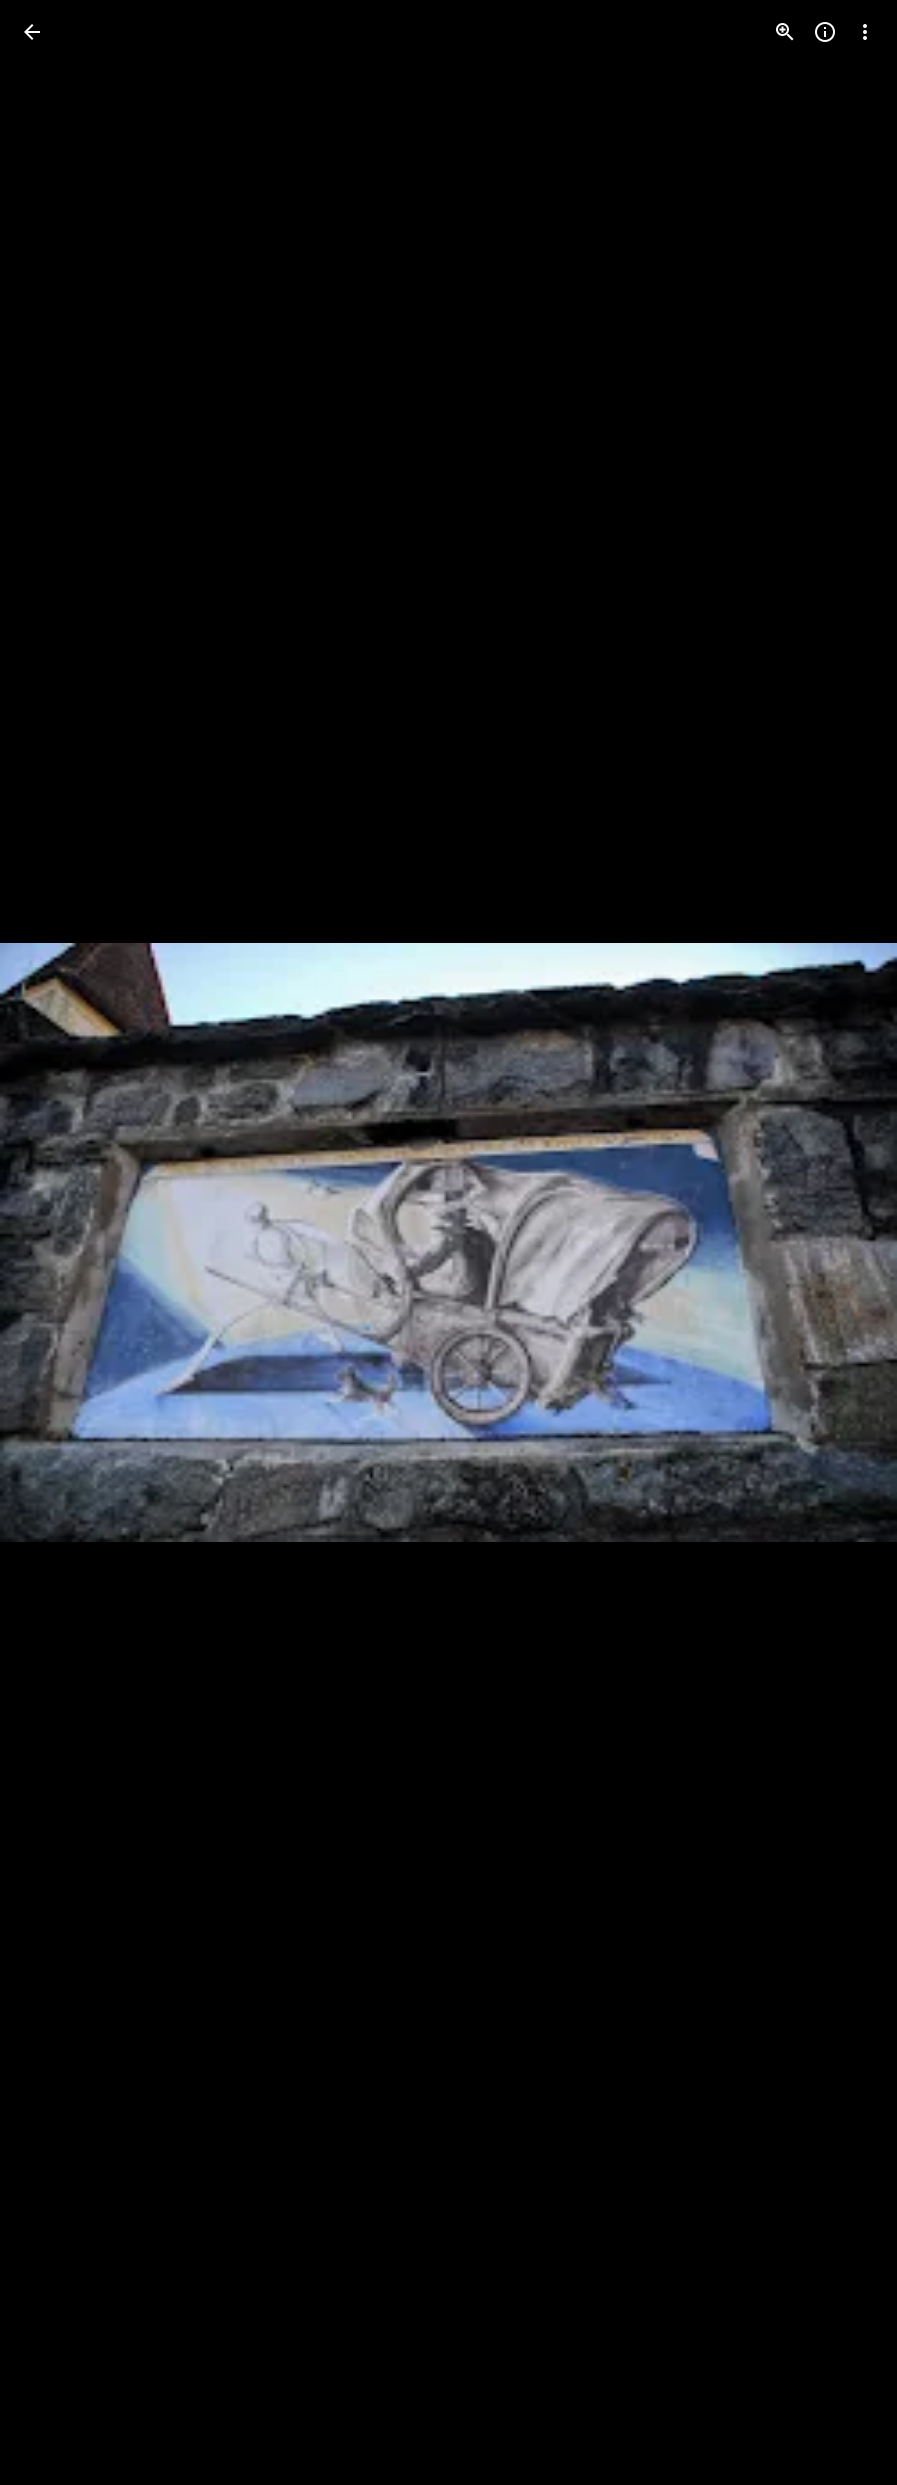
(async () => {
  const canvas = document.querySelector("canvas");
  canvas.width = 897;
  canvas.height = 2485;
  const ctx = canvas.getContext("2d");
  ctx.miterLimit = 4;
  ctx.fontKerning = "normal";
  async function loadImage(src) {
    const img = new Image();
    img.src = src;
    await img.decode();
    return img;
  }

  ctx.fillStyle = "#000000";
  ctx.fillRect(0, 0, 897, 2485);
  ctx.drawImage(await loadImage("img/1.png"), 24, 24, 16, 16);
  ctx.drawImage(await loadImage("img/2.png"), 776, 23, 18, 18);
  ctx.drawImage(await loadImage("img/3.png"), 815, 22, 20, 20);
  ctx.drawImage(await loadImage("img/4.png"), 863, 24, 4, 16);
  ctx.drawImage(await loadImage("img/5.png"), 0, 943, 897, 599);
})();
